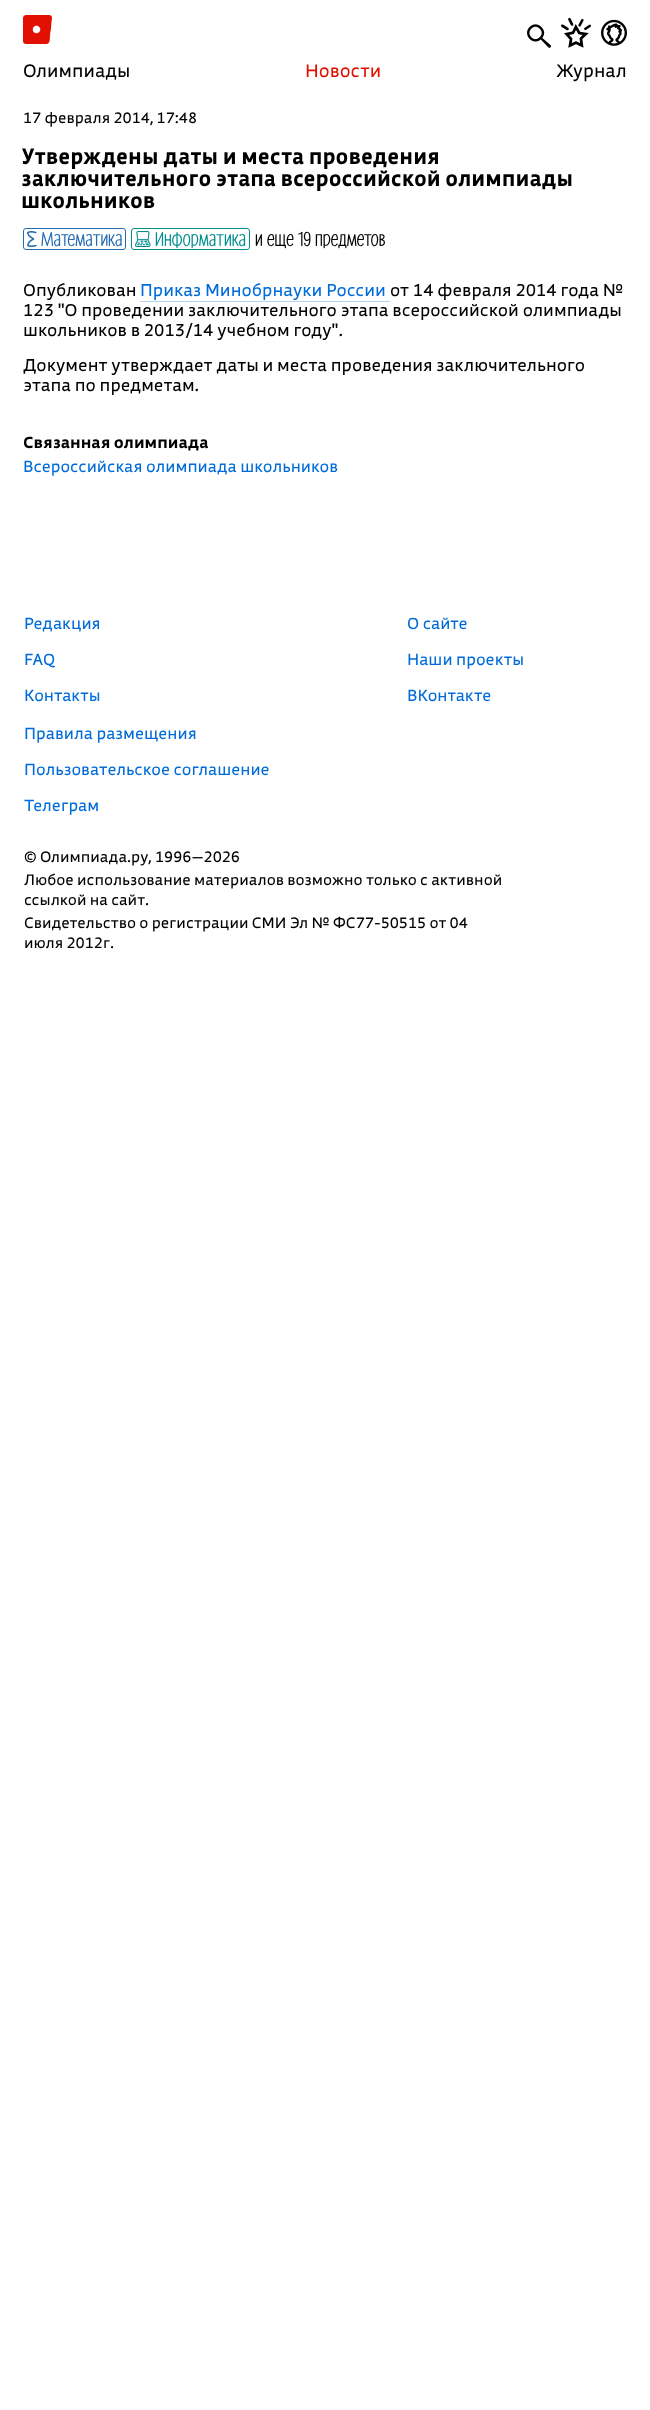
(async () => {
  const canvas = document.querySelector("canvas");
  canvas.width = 650;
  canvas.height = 2410;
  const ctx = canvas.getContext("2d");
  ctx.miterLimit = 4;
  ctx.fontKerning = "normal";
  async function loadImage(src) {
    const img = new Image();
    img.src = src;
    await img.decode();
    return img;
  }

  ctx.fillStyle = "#ffffff";
  ctx.fillRect(0, 0, 650, 2410);
  ctx.drawImage(await loadImage("img/1.png"), 23, 15, 29, 29);
  ctx.drawImage(await loadImage("img/2.png"), 527, 24, 24, 24);
  ctx.drawImage(await loadImage("img/3.png"), 561, 17, 30, 31);
  ctx.drawImage(await loadImage("img/4.png"), 601, 19, 26, 27);
  ctx.beginPath();
  ctx.roundRect(23.5, 228.5, 102, 21, 2.5);
  ctx.strokeStyle = "#246bb2";
  ctx.stroke();
  ctx.drawImage(await loadImage("img/5.png"), 27, 231, 10, 16);
  ctx.beginPath();
  ctx.roundRect(131.5, 228.5, 118, 21, 2.5);
  ctx.strokeStyle = "#008e8f";
  ctx.stroke();
  ctx.drawImage(await loadImage("img/6.png"), 135, 231, 16, 16);
  ctx.fillStyle = "#b3d3f4";
  ctx.fillRect(140, 301, 250, 1);
  ctx.font = "18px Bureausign";
  ctx.fillStyle = "#000000";
  ctx.fillText("Олимпиады", 23, 77);
  ctx.fillStyle = "#e11000";
  ctx.fillText("Новости", 305, 77);
  ctx.fillStyle = "#000000";
  ctx.fillText("Журнал", 556, 77);
  ctx.font = "15px Bureausign";
  ctx.fillText("17 февраля 2014, 17:48", 23, 123);
  ctx.font = "bold 22px Bureausign";
  for (const [text, x, y] of [
    ["Утверждены даты и места проведения", 21, 164],
    ["заключительного этапа всероссийской олимпиады", 21, 186],
    ["школьников", 21, 208],
  ]) {
    ctx.fillText(text, x, y);
  }
  ctx.font = "20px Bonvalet";
  ctx.fillStyle = "#246bb2";
  ctx.fillText("Математика", 41, 246);
  ctx.fillStyle = "#008e8f";
  ctx.fillText("Информатика", 155, 246);
  ctx.fillStyle = "#000000";
  ctx.fillText("и еще 19 предметов", 255, 246);
  ctx.font = "17px Bureausign";
  ctx.fillText("Опубликован", 23, 296);
  ctx.fillStyle = "#006cd9";
  ctx.fillText("Приказ Минобрнауки России", 140, 296);
  ctx.fillStyle = "#000000";
  for (const [text, x, y] of [
    ["от 14 февраля 2014 года №", 390, 296],
    ["123 \"О проведении заключительного этапа всероссийской олимпиады", 23, 316],
    ["школьников в 2013/14 учебном году\".", 23, 336],
    ["Документ утверждает даты и места проведения заключительного", 23, 371],
    ["этапа по предметам.", 23, 391],
  ]) {
    ctx.fillText(text, x, y);
  }
  ctx.font = "bold 16px 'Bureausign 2'";
  ctx.fillText("Связанная олимпиада", 23, 448);
  ctx.font = "16px Bureausign";
  ctx.fillStyle = "#006cd9";
  for (const [text, x, y] of [
    ["Всероссийская олимпиада школьников", 23, 472],
    ["Редакция", 24, 629],
    ["FAQ", 24, 665],
    ["Контакты", 24, 701],
    ["О сайте", 407, 629],
    ["Наши проекты", 407, 665],
    ["ВКонтакте", 407, 701],
    ["Правила размещения", 24, 739],
    ["Пользовательское соглашение", 24, 775],
    ["Телеграм", 24, 811],
  ]) {
    ctx.fillText(text, x, y);
  }
  ctx.font = "15px Bureausign";
  ctx.fillStyle = "#000000";
  for (const [text, x, y] of [
    ["© Олимпиада.ру, 1996—2026", 24, 862],
    ["Любое использование материалов возможно только с активной", 24, 885],
    ["ссылкой на сайт.", 24, 905],
    ["Свидетельство о регистрации СМИ Эл № ФС77-50515 от 04", 24, 928],
    ["июля 2012г.", 24, 948],
  ]) {
    ctx.fillText(text, x, y);
  }
})();
